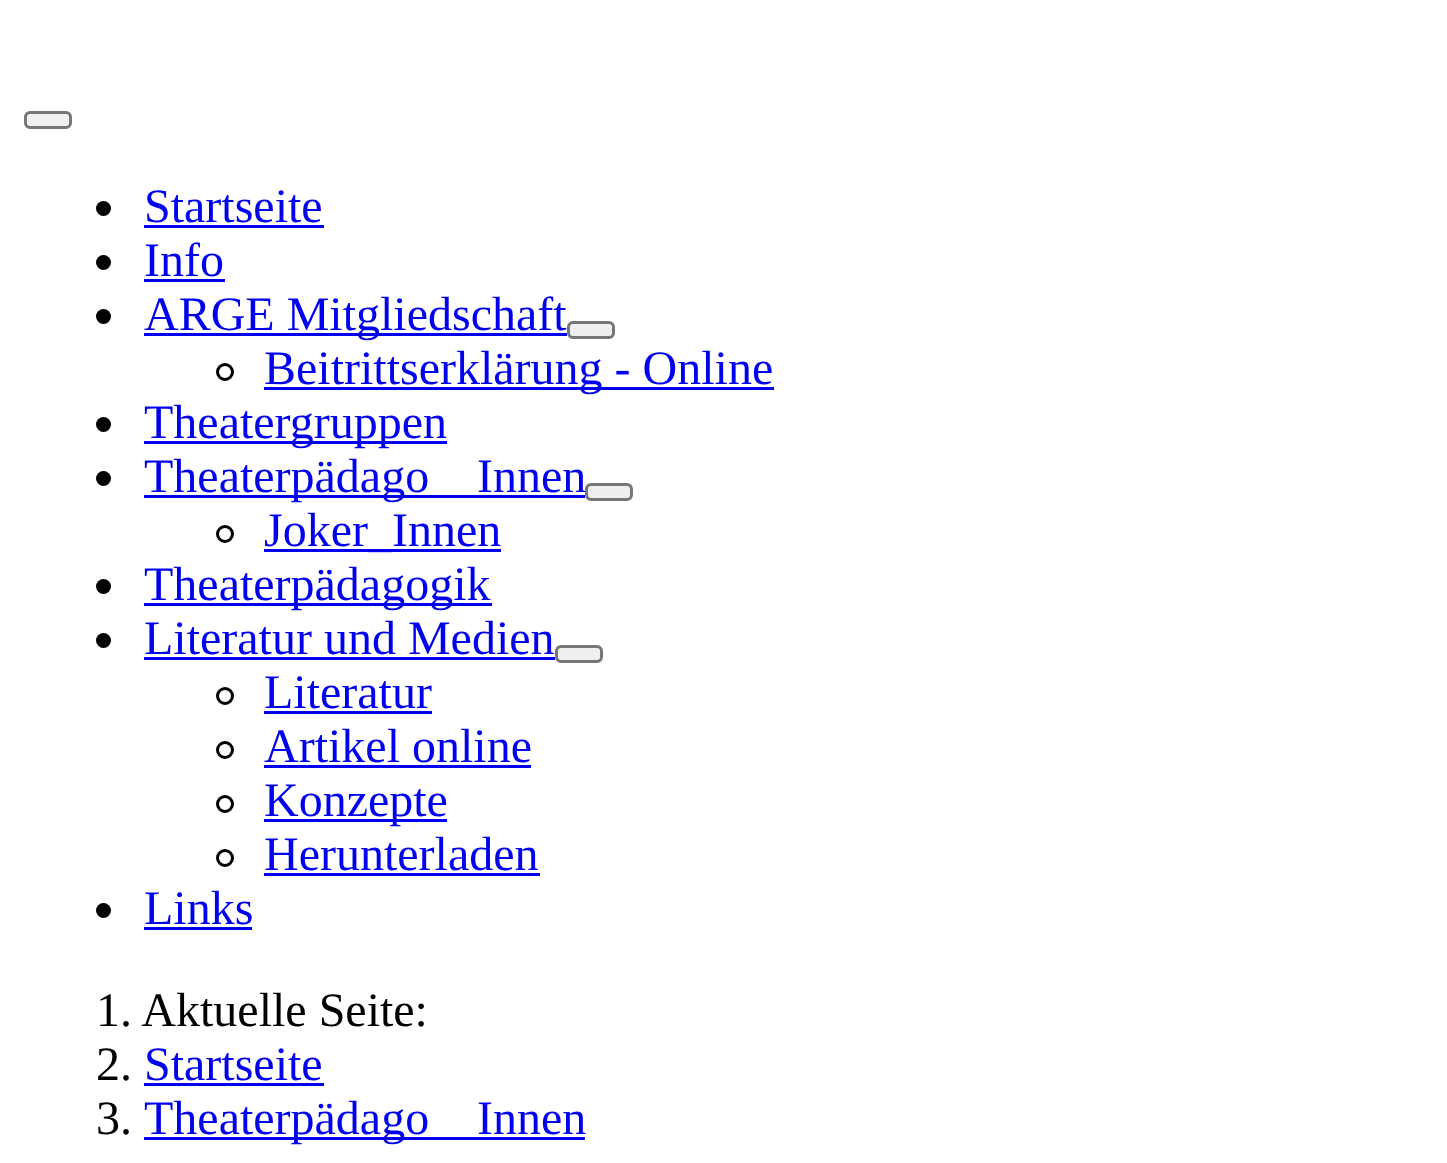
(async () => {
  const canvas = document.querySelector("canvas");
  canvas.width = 1447;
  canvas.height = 1163;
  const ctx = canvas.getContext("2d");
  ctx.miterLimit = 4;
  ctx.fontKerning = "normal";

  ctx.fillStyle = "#ffffff";
  ctx.fillRect(0, 0, 1447, 1163);
  ctx.fillStyle = "#efefef";
  ctx.beginPath();
  ctx.roundRect(25.5, 112.5, 45, 15, 4.5);
  ctx.fill();
  ctx.strokeStyle = "#767676";
  ctx.lineWidth = 3;
  ctx.stroke();
  ctx.fillStyle = "#000000";
  ctx.beginPath();
  ctx.arc(103.5, 208.5, 7.5, 0, Math.PI * 2);
  ctx.fill();
  ctx.fillStyle = "#0000ee";
  ctx.fillRect(144, 225, 180, 3);
  ctx.fillStyle = "#000000";
  ctx.beginPath();
  ctx.arc(103.5, 262.5, 7.5, 0, Math.PI * 2);
  ctx.fill();
  ctx.fillStyle = "#0000ee";
  ctx.fillRect(144, 279, 81, 3);
  ctx.fillStyle = "#000000";
  ctx.beginPath();
  ctx.arc(103.5, 316.5, 7.5, 0, Math.PI * 2);
  ctx.fill();
  ctx.fillStyle = "#0000ee";
  ctx.fillRect(144, 333, 423, 3);
  ctx.fillStyle = "#efefef";
  ctx.beginPath();
  ctx.roundRect(568.5, 322.5, 45, 15, 4.5);
  ctx.fill();
  ctx.stroke();
  ctx.beginPath();
  ctx.arc(225, 372, 7.5, 0, Math.PI * 2);
  ctx.strokeStyle = "#000000";
  ctx.stroke();
  ctx.fillStyle = "#0000ee";
  ctx.fillRect(264, 387, 510, 3);
  ctx.fillStyle = "#000000";
  ctx.beginPath();
  ctx.arc(103.5, 424.5, 7.5, 0, Math.PI * 2);
  ctx.fill();
  ctx.fillStyle = "#0000ee";
  ctx.fillRect(144, 441, 303, 3);
  ctx.fillStyle = "#000000";
  ctx.beginPath();
  ctx.arc(103.5, 478.5, 7.5, 0, Math.PI * 2);
  ctx.fill();
  ctx.fillStyle = "#0000ee";
  ctx.fillRect(144, 495, 441, 3);
  ctx.beginPath();
  ctx.arc(225, 534, 7.5, 0, Math.PI * 2);
  ctx.stroke();
  ctx.fillRect(264, 549, 237, 3);
  ctx.fillStyle = "#000000";
  ctx.beginPath();
  ctx.arc(103.5, 586.5, 7.5, 0, Math.PI * 2);
  ctx.fill();
  ctx.fillStyle = "#0000ee";
  ctx.fillRect(144, 603, 348, 3);
  ctx.fillStyle = "#000000";
  ctx.beginPath();
  ctx.arc(103.5, 640.5, 7.5, 0, Math.PI * 2);
  ctx.fill();
  ctx.fillStyle = "#0000ee";
  ctx.fillRect(144, 657, 411, 3);
  ctx.fillStyle = "#efefef";
  ctx.beginPath();
  ctx.roundRect(556.5, 646.5, 45, 15, 4.5);
  ctx.fill();
  ctx.strokeStyle = "#767676";
  ctx.stroke();
  ctx.beginPath();
  ctx.arc(225, 696, 7.5, 0, Math.PI * 2);
  ctx.strokeStyle = "#000000";
  ctx.stroke();
  ctx.fillStyle = "#0000ee";
  ctx.fillRect(264, 711, 168, 3);
  ctx.beginPath();
  ctx.arc(225, 750, 7.5, 0, Math.PI * 2);
  ctx.stroke();
  ctx.fillRect(264, 765, 267, 3);
  ctx.beginPath();
  ctx.arc(225, 804, 7.5, 0, Math.PI * 2);
  ctx.stroke();
  ctx.fillRect(264, 819, 183, 3);
  ctx.beginPath();
  ctx.arc(225, 858, 7.5, 0, Math.PI * 2);
  ctx.stroke();
  ctx.fillRect(264, 873, 276, 3);
  ctx.fillStyle = "#000000";
  ctx.beginPath();
  ctx.arc(103.5, 910.5, 7.5, 0, Math.PI * 2);
  ctx.fill();
  for (const [x, y, w, h, color] of [
    [144, 927, 108, 3, "#0000ee"],
    [144, 1083, 180, 3, "#0000ee"],
    [144, 1137, 441, 3, "#0000ee"],
  ]) {
    ctx.fillStyle = color;
    ctx.fillRect(x, y, w, h);
  }
  ctx.font = "48px Liberation Serif";
  for (const [text, x, y] of [
    ["Startseite", 144, 222],
    ["Info", 144, 276],
    ["ARGE Mitgliedschaft", 144, 330],
    ["Beitrittserklärung - Online", 264, 384],
    ["Theatergruppen", 144, 438],
    ["Theaterpädago", 144, 492],
    ["Innen", 477, 492],
  ]) {
    ctx.fillText(text, x, y);
  }
  ctx.fillStyle = "#efefef";
  ctx.beginPath();
  ctx.roundRect(586.5, 484.5, 45, 15, 4.5);
  ctx.fill();
  ctx.strokeStyle = "#767676";
  ctx.stroke();
  ctx.fillStyle = "#0000ee";
  for (const [text, x, y] of [
    ["Joker_Innen", 264, 546],
    ["Theaterpädagogik", 144, 600],
    ["Literatur und Medien", 144, 654],
    ["Literatur", 264, 708],
    ["Artikel online", 264, 762],
    ["Konzepte", 264, 816],
    ["Herunterladen", 264, 870],
    ["Links", 144, 924],
  ]) {
    ctx.fillText(text, x, y);
  }
  ctx.fillStyle = "#000000";
  ctx.fillText("1. Aktuelle Seite:", 96, 1026);
  ctx.fillText("2.", 96, 1080);
  ctx.fillStyle = "#0000ee";
  ctx.fillText("Startseite", 144, 1080);
  ctx.fillStyle = "#000000";
  ctx.fillText("3.", 96, 1134);
  ctx.fillStyle = "#0000ee";
  ctx.fillText("Theaterpädago", 144, 1134);
  ctx.fillText("Innen", 477, 1134);
})();
